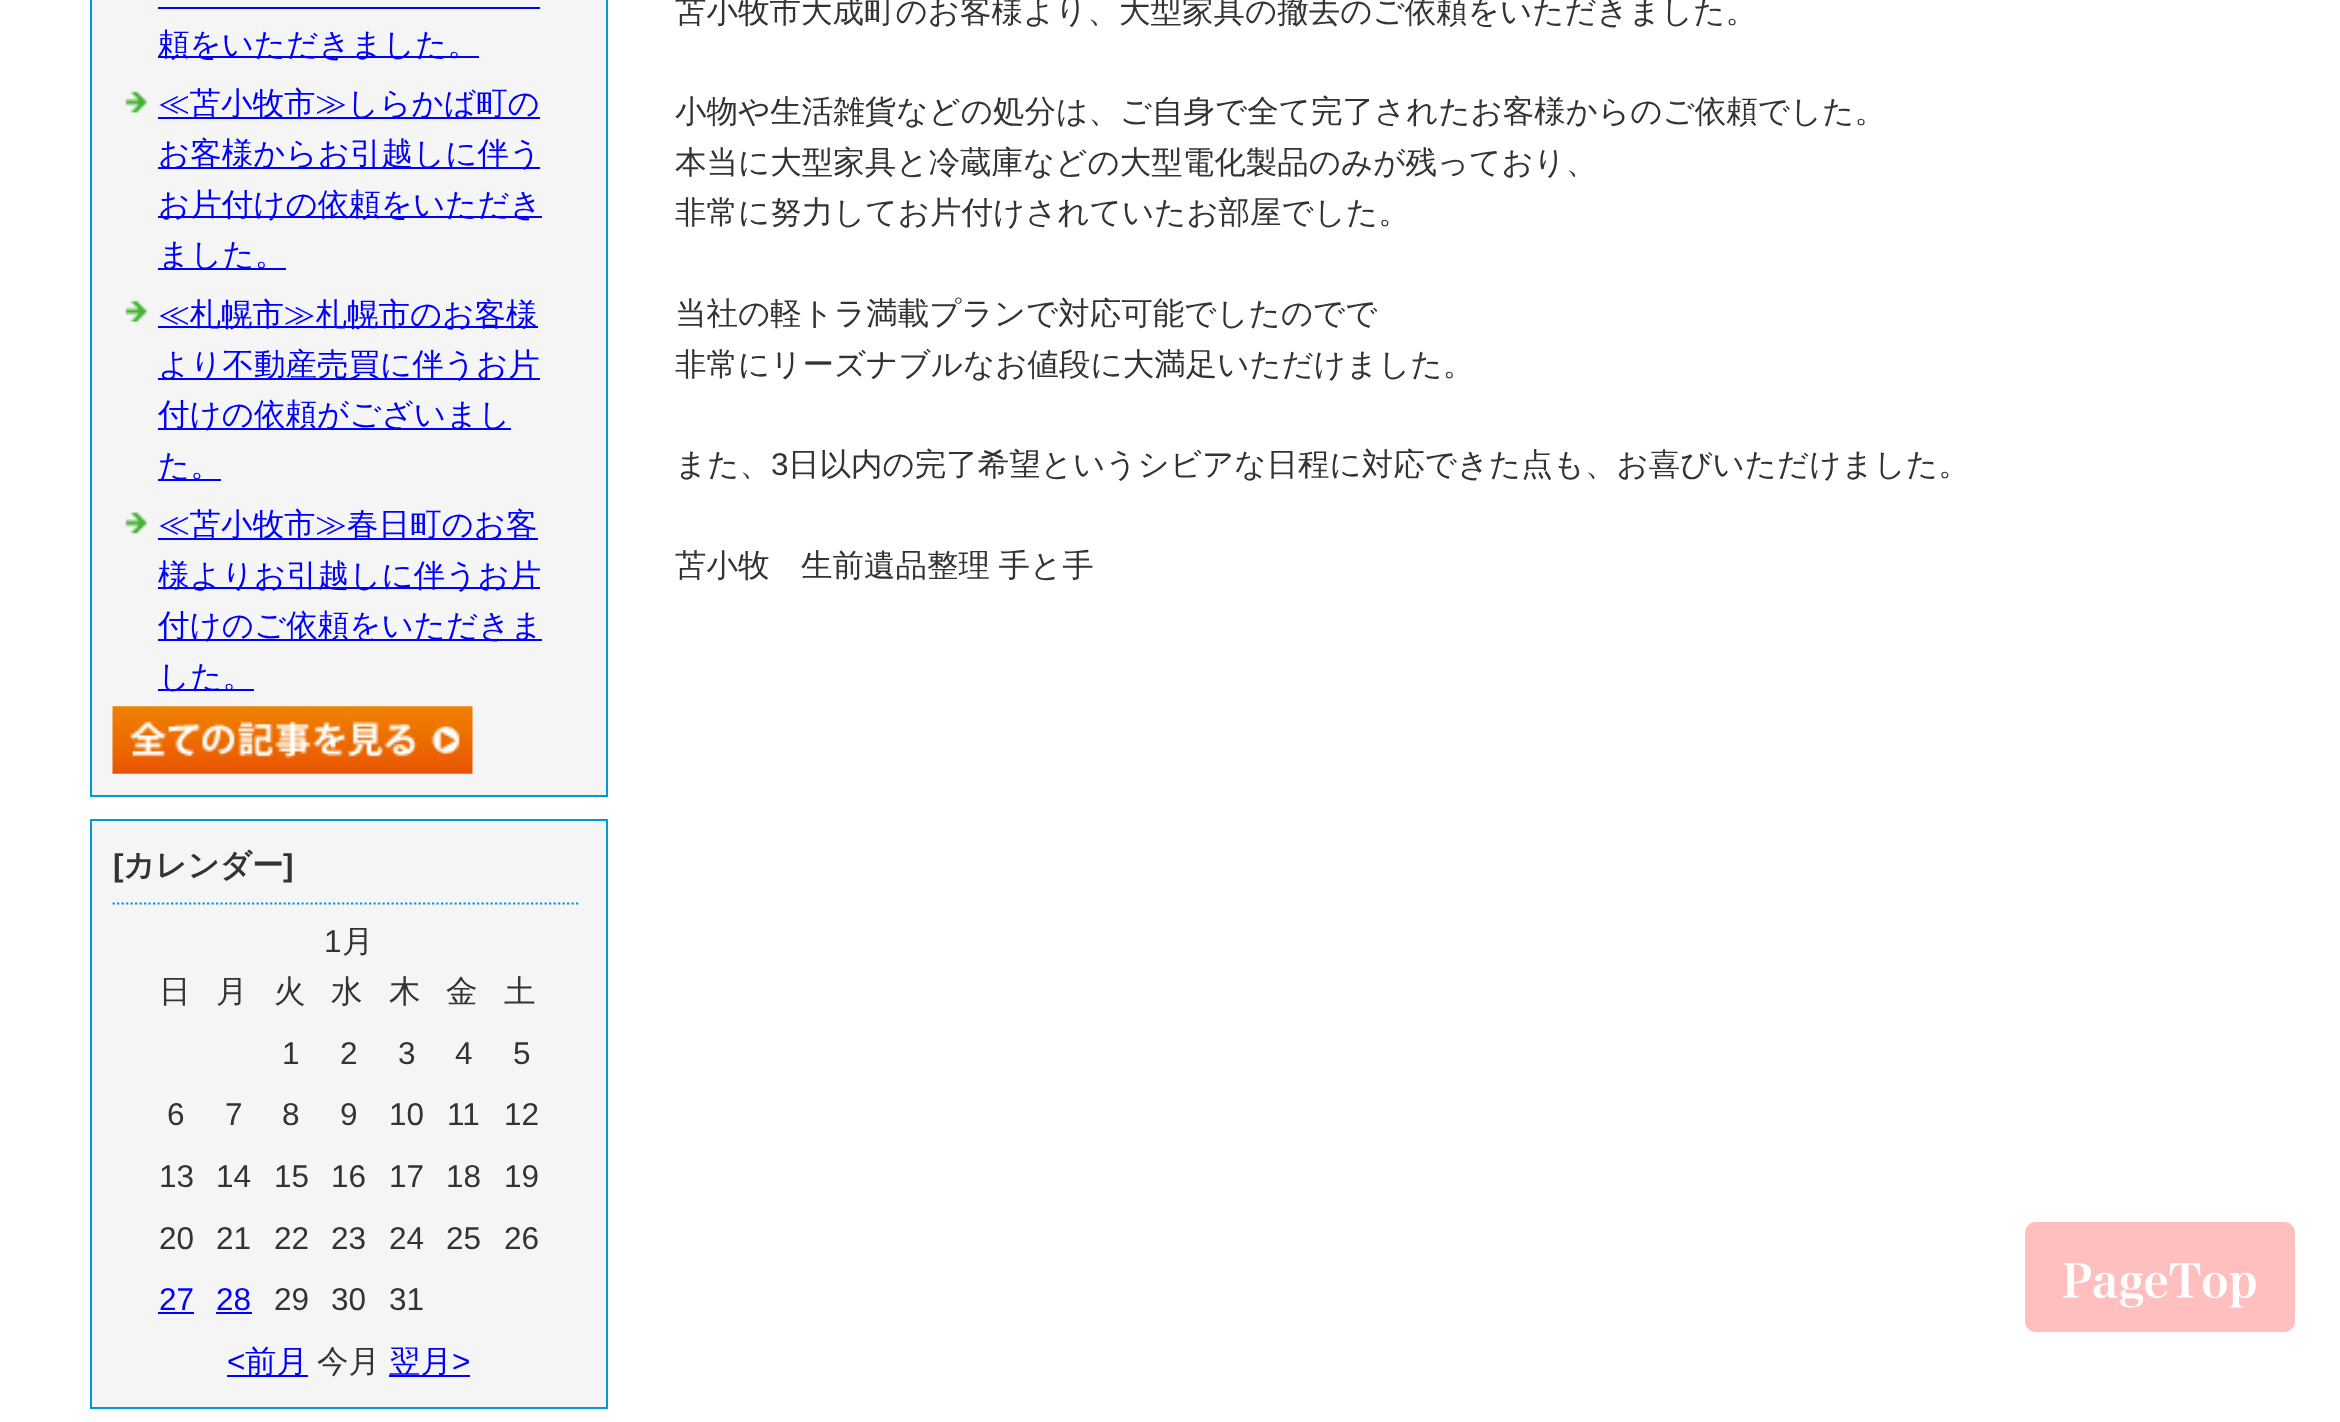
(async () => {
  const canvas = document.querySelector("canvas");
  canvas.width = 2340;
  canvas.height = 1422;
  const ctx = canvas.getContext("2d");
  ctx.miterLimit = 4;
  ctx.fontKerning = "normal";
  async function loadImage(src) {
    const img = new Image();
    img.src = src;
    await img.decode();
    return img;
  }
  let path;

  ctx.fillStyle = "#ffffff";
  ctx.fillRect(0, 0, 2340, 1422);
  ctx.fillStyle = "#f5f5f5";
  ctx.beginPath();
  ctx.rect(91, -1, 516, 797);
  ctx.fill();
  ctx.strokeStyle = "#0099d9";
  ctx.lineWidth = 2;
  ctx.stroke();
  ctx.fillStyle = "#0000ff";
  ctx.fillRect(158, 7, 382, 2);
  ctx.fillRect(158, 56, 321, 2);
  ctx.drawImage(await loadImage("img/1.png"), 125, 91, 22, 22);
  for (const [x, y, w, h, color] of [
    [158, 117, 382, 2, "#0000ff"],
    [158, 167, 382, 2, "#0000ff"],
    [158, 216, 384, 2, "#0000ff"],
    [158, 268, 128, 2, "#0000ff"],
  ]) {
    ctx.fillStyle = color;
    ctx.fillRect(x, y, w, h);
  }
  ctx.drawImage(await loadImage("img/2.png"), 125, 300, 22, 23);
  for (const [x, y, w, h, color] of [
    [158, 326, 380, 2, "#0000ff"],
    [158, 378, 382, 2, "#0000ff"],
    [158, 428, 353, 2, "#0000ff"],
    [158, 479, 63, 2, "#0000ff"],
  ]) {
    ctx.fillStyle = color;
    ctx.fillRect(x, y, w, h);
  }
  ctx.drawImage(await loadImage("img/3.png"), 125, 512, 22, 22);
  for (const [x, y, w, h, color] of [
    [158, 538, 380, 2, "#0000ff"],
    [158, 587, 382, 2, "#0000ff"],
    [158, 639, 384, 2, "#0000ff"],
    [158, 689, 96, 2, "#0000ff"],
  ]) {
    ctx.fillStyle = color;
    ctx.fillRect(x, y, w, h);
  }
  ctx.drawImage(await loadImage("img/4.png"), 112, 706, 361, 68);
  ctx.fillStyle = "#f5f5f5";
  ctx.beginPath();
  ctx.rect(91, 820, 516, 588);
  ctx.fill();
  ctx.stroke();
  path = new Path2D("M112.5 903.5H580.5");
  ctx.lineWidth = 2.2;
  ctx.setLineDash([2.25, 2.25]);
  ctx.stroke(path);
  for (const [x, y, w, h, color] of [
    [158, 1312, 36, 2, "#0000ff"],
    [216, 1312, 36, 2, "#0000ff"],
    [227, 1375, 81, 2, "#0000ff"],
    [389, 1375, 81, 2, "#0000ff"],
  ]) {
    ctx.fillStyle = color;
    ctx.fillRect(x, y, w, h);
  }
  ctx.fillStyle = "#ffbfbf";
  ctx.beginPath();
  ctx.roundRect(2025, 1222, 270, 110, 11);
  ctx.fill();
  ctx.font = "500 31.5px WenQuanYi Zen Hei";
  ctx.fillStyle = "#0000ff";
  for (const [text, x, y] of [
    ["頼をいただきました。", 158, 55],
    ["≪苫小牧市≫しらかば町の", 158, 114],
    ["お客様からお引越しに伴う", 158, 164],
    ["お片付けの依頼をいただき", 158, 215],
    ["ました。", 158, 265],
    ["≪札幌市≫札幌市のお客様", 158, 325],
    ["より不動産売買に伴うお片", 158, 375],
    ["付けの依頼がございまし", 158, 425],
    ["た。", 158, 476],
    ["≪苫小牧市≫春日町のお客", 158, 535],
    ["様よりお引越しに伴うお片", 158, 586],
    ["付けのご依頼をいただきま", 158, 636],
    ["した。", 158, 687],
  ]) {
    ctx.fillText(text, x, y);
  }
  ctx.font = "bold 31.5px Liberation Sans";
  ctx.fillStyle = "#333333";
  ctx.fillText("[", 113, 876);
  ctx.font = "bold 31.5px WenQuanYi Zen Hei";
  ctx.fillText("カレンダー", 123, 876);
  ctx.font = "bold 31.5px Liberation Sans";
  ctx.fillText("]", 283, 876);
  ctx.font = "31.5px Liberation Sans";
  ctx.fillText("1", 324, 952);
  ctx.font = "500 31.5px WenQuanYi Zen Hei";
  for (const [text, x, y] of [
    ["月", 342, 952],
    ["日", 159, 1002],
    ["月", 216, 1002],
    ["火", 274, 1002],
    ["水", 331, 1002],
    ["木", 389, 1002],
    ["金", 446, 1002],
    ["土", 504, 1002],
  ]) {
    ctx.fillText(text, x, y);
  }
  ctx.font = "31.5px Liberation Sans";
  for (const [text, x, y] of [
    ["1", 282, 1064],
    ["2", 340, 1064],
    ["3", 398, 1064],
    ["4", 455, 1064],
    ["5", 513, 1064],
    ["6", 167, 1125],
    ["7", 225, 1125],
    ["8", 282, 1125],
    ["9", 340, 1125],
    ["10", 389, 1125],
    ["11", 447, 1125],
    ["12", 504, 1125],
    ["13", 159, 1187],
    ["14", 216, 1187],
    ["15", 274, 1187],
    ["16", 331, 1187],
    ["17", 389, 1187],
    ["18", 446, 1187],
    ["19", 504, 1187],
    ["20", 159, 1249],
    ["21", 216, 1249],
    ["22", 274, 1249],
    ["23", 331, 1249],
    ["24", 389, 1249],
    ["25", 446, 1249],
    ["26", 504, 1249],
  ]) {
    ctx.fillText(text, x, y);
  }
  ctx.fillStyle = "#0000ff";
  ctx.fillText("27", 159, 1310);
  ctx.fillText("28", 216, 1310);
  ctx.fillStyle = "#333333";
  for (const [text, x, y] of [
    ["29", 274, 1310],
    ["30", 331, 1310],
    ["31", 389, 1310],
  ]) {
    ctx.fillText(text, x, y);
  }
  ctx.fillStyle = "#0000ff";
  ctx.fillText("<", 227, 1372);
  ctx.font = "500 31.5px WenQuanYi Zen Hei";
  ctx.fillText("前月", 245, 1372);
  ctx.fillStyle = "#333333";
  ctx.fillText("今月", 317, 1372);
  ctx.fillStyle = "#0000ff";
  ctx.fillText("翌月", 389, 1372);
  ctx.font = "31.5px Liberation Sans";
  ctx.fillText(">", 452, 1372);
  ctx.font = "500 31.5px WenQuanYi Zen Hei";
  ctx.fillStyle = "#333333";
  for (const [text, x, y] of [
    ["苫小牧市大成町のお客様より、大型家具の撤去のご依頼をいただきました。", 675, 22],
    ["小物や生活雑貨などの処分は、ご自身で全て完了されたお客様からのご依頼でした。", 675, 122],
    ["本当に大型家具と冷蔵庫などの大型電化製品のみが残っており、", 675, 173],
    ["非常に努力してお片付けされていたお部屋でした。", 675, 223],
    ["当社の軽トラ満載プランで対応可能でしたのでで", 675, 324],
    ["非常にリーズナブルなお値段に大満足いただけました。", 675, 375],
    ["また、", 675, 475],
  ]) {
    ctx.fillText(text, x, y);
  }
  ctx.font = "31.5px Liberation Sans";
  ctx.fillText("3", 771, 475);
  ctx.font = "500 31.5px WenQuanYi Zen Hei";
  ctx.fillText("日以内の完了希望というシビアな日程に対応できた点も、お喜びいただけました。", 788, 475);
  ctx.wordSpacing = "-1px";
  ctx.fillText("苫小牧　生前遺品整理 手と手", 675, 576);
  ctx.wordSpacing = "0px";
  ctx.font = "bold 45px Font";
  ctx.fillStyle = "#ffffff";
  ctx.fillText("PageTop", 2062, 1298);
})();
